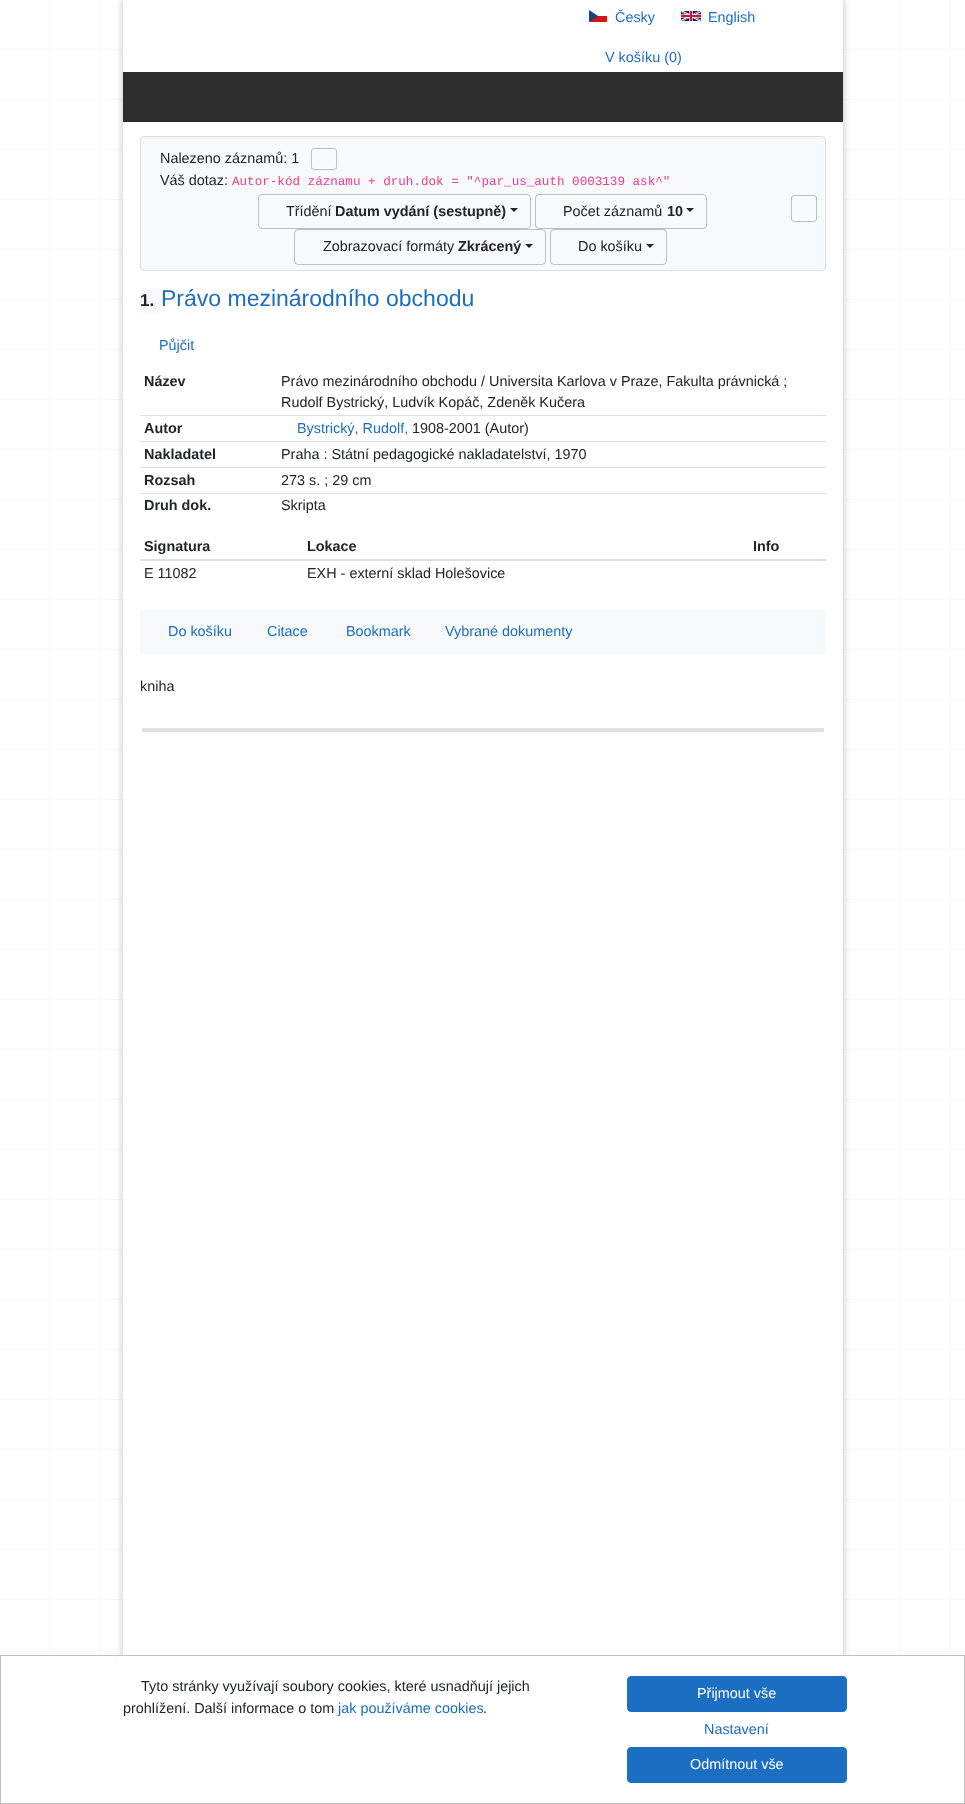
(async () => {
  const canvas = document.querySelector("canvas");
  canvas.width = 965;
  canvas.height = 1804;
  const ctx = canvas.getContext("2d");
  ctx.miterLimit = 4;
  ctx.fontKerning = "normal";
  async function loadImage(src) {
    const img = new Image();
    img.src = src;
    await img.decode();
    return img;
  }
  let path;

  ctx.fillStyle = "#ffffff";
  ctx.fillRect(0, 0, 965, 1804);
  for (const [x, y, w, h, color] of [
    [49, 0, 1, 1655, "#f8f9fa"],
    [99, 0, 1, 1655, "#f8f9fa"],
    [849, 0, 1, 1655, "#f8f9fa"],
    [899, 0, 1, 1655, "#f8f9fa"],
    [949, 0, 1, 1655, "#f8f9fa"],
  ]) {
    ctx.fillStyle = color;
    ctx.fillRect(x, y, w, h);
  }
  ctx.drawImage(await loadImage("img/1.png"), 0, 49, 965, 1601);
  ctx.fillStyle = "rgba(0, 0, 0, 0.2)";
  ctx.filter = "blur(3px)";
  ctx.beginPath();
  ctx.rect(122, -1, 722, 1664);
  ctx.fill();
  ctx.filter = "none";
  ctx.fillStyle = "#ffffff";
  ctx.fillRect(123, 0, 720, 1655);
  ctx.drawImage(await loadImage("img/2.png"), 589, 10, 18, 12);
  ctx.drawImage(await loadImage("img/3.png"), 681, 11, 20, 10);
  ctx.fillStyle = "#2e2e2e";
  ctx.fillRect(123, 72, 720, 50);
  ctx.fillStyle = "#f8f9fa";
  ctx.beginPath();
  ctx.roundRect(140.5, 136.5, 685, 134, 3.5);
  ctx.fill();
  ctx.strokeStyle = "#dfe0e1";
  ctx.stroke();
  ctx.beginPath();
  ctx.roundRect(311.5, 148.5, 25, 21, 2.5);
  ctx.strokeStyle = "#c0c0c0";
  ctx.stroke();
  ctx.beginPath();
  ctx.roundRect(258.5, 194.5, 272, 34, 3.5);
  ctx.stroke();
  ctx.fillStyle = "#212529";
  path = new Path2D("M510 208H518L514 212Z");
  ctx.fill(path);
  ctx.beginPath();
  ctx.roundRect(535.5, 194.5, 171, 34, 3.5);
  ctx.stroke();
  path = new Path2D("M686 208H694L690 212Z");
  ctx.fill(path);
  ctx.beginPath();
  ctx.roundRect(294.5, 229.5, 251, 35, 3.5);
  ctx.stroke();
  path = new Path2D("M525 244H533L529 248Z");
  ctx.fill(path);
  ctx.beginPath();
  ctx.roundRect(550.5, 229.5, 116, 35, 3.5);
  ctx.stroke();
  path = new Path2D("M646 244H654L650 248Z");
  ctx.fill(path);
  ctx.beginPath();
  ctx.roundRect(791.5, 195.5, 25, 26, 2.5);
  ctx.stroke();
  ctx.fillStyle = "#dee2e6";
  ctx.fillRect(142, 728, 682, 4);
  ctx.fillStyle = "#f8f9fa";
  ctx.beginPath();
  ctx.roundRect(140, 288, 21, 26, 4);
  ctx.fill();
  for (const [x, y, w, h, color] of [
    [140, 415, 686, 1, "#dee2e6"],
    [140, 441, 686, 1, "#dee2e6"],
    [140, 467, 686, 1, "#dee2e6"],
    [140, 493, 686, 1, "#dee2e6"],
    [140, 559, 686, 2, "#dee2e6"],
    [140, 610, 686, 44, "#f8f9fa"],
    [117, 1656, 732, 12, "#ffffff"],
  ]) {
    ctx.fillStyle = color;
    ctx.fillRect(x, y, w, h);
  }
  ctx.strokeRect(0.5, 1655.5, 964, 148);
  ctx.fillStyle = "#1b6ec2";
  ctx.beginPath();
  ctx.roundRect(627.5, 1676.5, 219, 35, 3.5);
  ctx.fill();
  ctx.strokeStyle = "#1b6ec2";
  ctx.stroke();
  ctx.beginPath();
  ctx.roundRect(627.5, 1747.5, 219, 35, 3.5);
  ctx.fill();
  ctx.stroke();
  ctx.font = "14.4px Liberation Sans";
  for (const [text, x, y] of [
    ["Česky", 615, 22],
    ["English", 708, 22],
    ["V košíku (0)", 605, 62],
  ]) {
    ctx.fillText(text, x, y);
  }
  ctx.fillStyle = "#212529";
  ctx.fillText("Nalezeno záznamů: 1", 160, 163);
  ctx.fillText("Váš dotaz:", 160, 185);
  ctx.font = "12.6px Liberation Mono";
  ctx.fillStyle = "#e83e8c";
  ctx.fillText("Autor-kód záznamu + druh.dok = \"^par_us_auth 0003139 ask^\"", 232, 185);
  ctx.font = "14.4px Liberation Sans";
  ctx.fillStyle = "#212529";
  ctx.fillText("Třídění", 286, 216);
  ctx.font = "bold 14.4px Liberation Sans";
  ctx.fillText("Datum vydání (sestupně)", 335, 216);
  ctx.font = "14.4px Liberation Sans";
  ctx.fillText("Počet záznamů", 563, 216);
  ctx.font = "bold 14.4px Liberation Sans";
  ctx.fillText("10", 667, 216);
  ctx.font = "14.4px Liberation Sans";
  ctx.fillText("Zobrazovací formáty", 323, 251);
  ctx.font = "bold 14.4px Liberation Sans";
  ctx.fillText("Zkrácený", 458, 251);
  ctx.font = "14.4px Liberation Sans";
  ctx.fillText("Do košíku", 578, 251);
  ctx.font = "bold 17px Liberation Sans";
  ctx.fillText("1.", 140, 306);
  ctx.font = "23px Liberation Sans";
  ctx.fillStyle = "#1b6ec2";
  ctx.fillText("Právo mezinárodního obchodu", 161, 306);
  ctx.font = "14.4px Liberation Sans";
  ctx.fillText("Půjčit", 159, 350);
  ctx.font = "bold 14.4px Liberation Sans";
  ctx.fillStyle = "#212529";
  ctx.fillText("Název", 144, 386);
  ctx.font = "14.4px Liberation Sans";
  ctx.fillText("Právo mezinárodního obchodu / Universita Karlova v Praze, Fakulta právnická ;", 281, 386);
  ctx.fillText("Rudolf Bystrický, Ludvík Kopáč, Zdeněk Kučera", 281, 407);
  ctx.font = "bold 14.4px Liberation Sans";
  ctx.fillText("Autor", 144, 433);
  ctx.font = "14.4px Liberation Sans";
  ctx.fillStyle = "#1b6ec2";
  ctx.fillText("Bystrický, Rudolf,", 297, 433);
  ctx.fillStyle = "#212529";
  ctx.fillText("1908-2001 (Autor)", 412, 433);
  ctx.font = "bold 14.4px Liberation Sans";
  ctx.fillText("Nakladatel", 144, 459);
  ctx.font = "14.4px Liberation Sans";
  ctx.fillText("Praha : Státní pedagogické nakladatelství, 1970", 281, 459);
  ctx.font = "bold 14.4px Liberation Sans";
  ctx.fillText("Rozsah", 144, 485);
  ctx.font = "14.4px Liberation Sans";
  ctx.fillText("273 s. ; 29 cm", 281, 485);
  ctx.font = "bold 14.4px Liberation Sans";
  ctx.fillText("Druh dok.", 144, 510);
  ctx.font = "14.4px Liberation Sans";
  ctx.fillText("Skripta", 281, 510);
  ctx.font = "bold 14.4px Liberation Sans";
  for (const [text, x, y] of [
    ["Signatura", 144, 551],
    ["Lokace", 307, 551],
    ["Info", 753, 551],
  ]) {
    ctx.fillText(text, x, y);
  }
  ctx.font = "14.4px Liberation Sans";
  ctx.fillText("E 11082", 144, 578);
  ctx.fillText("EXH - externí sklad Holešovice", 307, 578);
  ctx.fillStyle = "#1b6ec2";
  for (const [text, x, y] of [
    ["Do košíku", 168, 636],
    ["Citace", 267, 636],
    ["Bookmark", 346, 636],
    ["Vybrané dokumenty", 445, 636],
  ]) {
    ctx.fillText(text, x, y);
  }
  ctx.fillStyle = "#212529";
  for (const [text, x, y] of [
    ["kniha", 140, 691],
    ["Tyto stránky využívají soubory cookies, které usnadňují jejich", 141, 1691],
    ["prohlížení. Další informace o tom", 123, 1713],
  ]) {
    ctx.fillText(text, x, y);
  }
  ctx.fillStyle = "#1b6ec2";
  ctx.fillText("jak používáme cookies", 338, 1713);
  ctx.fillStyle = "#212529";
  ctx.fillText(".", 483, 1713);
  ctx.fillStyle = "#ffffff";
  ctx.fillText("Přijmout vše", 697, 1698);
  ctx.fillStyle = "#1b6ec2";
  ctx.fillText("Nastavení", 704, 1734);
  ctx.fillStyle = "#ffffff";
  ctx.fillText("Odmítnout vše", 690, 1769);
})();
